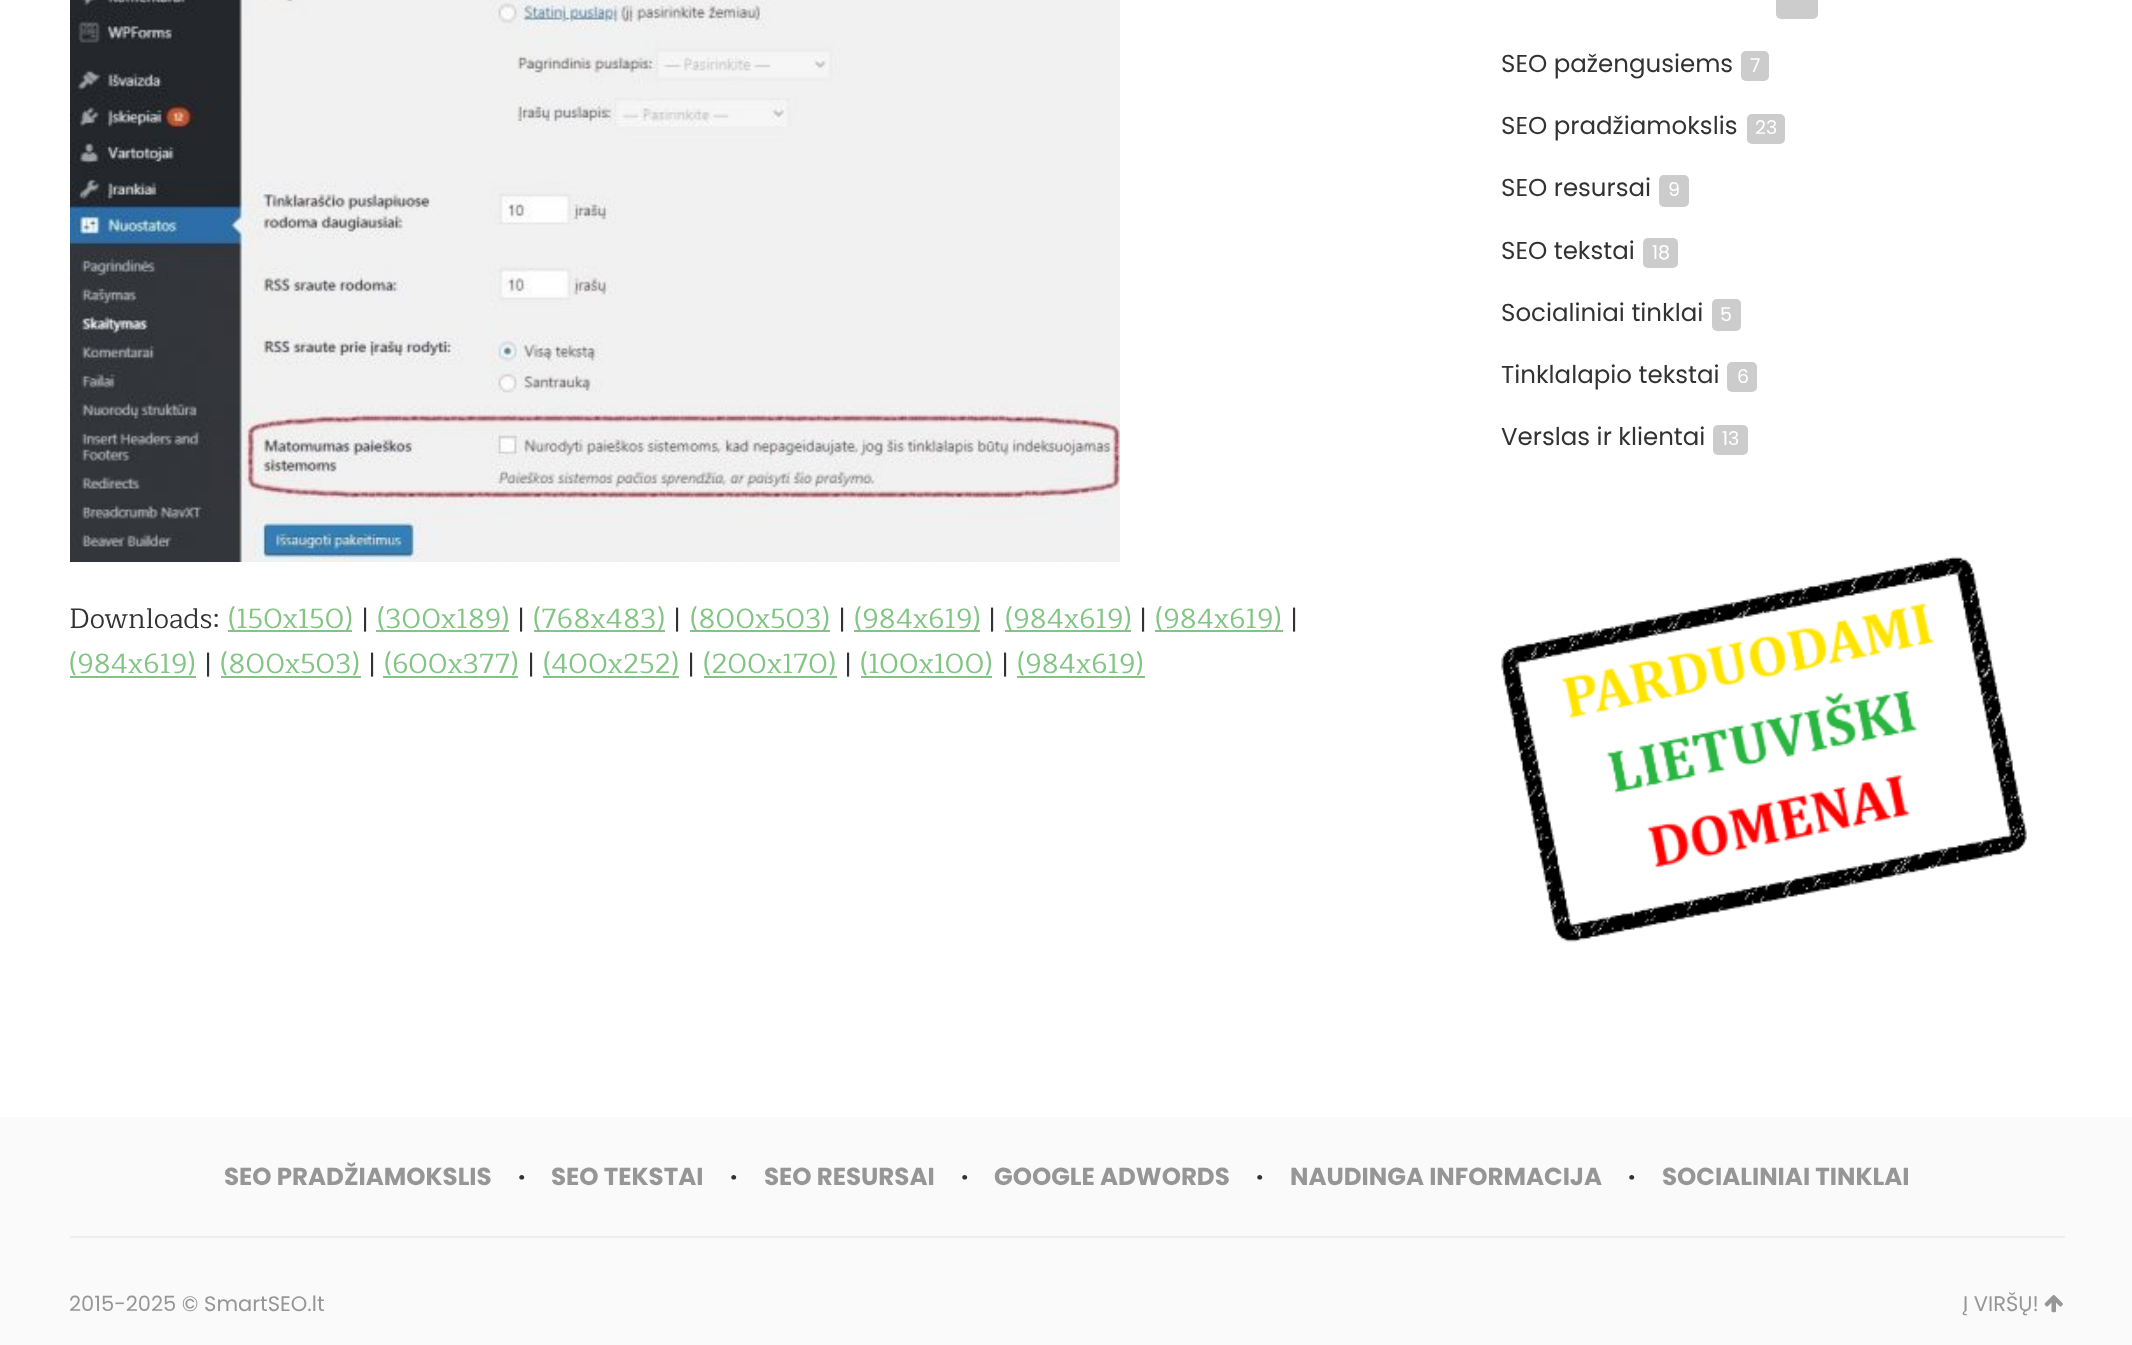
(async () => {
  const canvas = document.querySelector("canvas");
  canvas.width = 2132;
  canvas.height = 1345;
  const ctx = canvas.getContext("2d");
  ctx.miterLimit = 4;
  ctx.fontKerning = "normal";
  async function loadImage(src) {
    const img = new Image();
    img.src = src;
    await img.decode();
    return img;
  }

  ctx.fillStyle = "#ffffff";
  ctx.fillRect(0, 0, 2132, 1345);
  ctx.fillStyle = "#cccccc";
  ctx.beginPath();
  ctx.roundRect(1776, -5, 42, 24, 5);
  ctx.fill();
  ctx.beginPath();
  ctx.roundRect(1741, 51, 28, 30, 5);
  ctx.fill();
  ctx.beginPath();
  ctx.roundRect(1747, 114, 38, 30, 5);
  ctx.fill();
  ctx.beginPath();
  ctx.roundRect(1659, 175, 30, 32, 5);
  ctx.fill();
  ctx.beginPath();
  ctx.roundRect(1643, 238, 35, 30, 5);
  ctx.fill();
  ctx.beginPath();
  ctx.roundRect(1712, 299, 29, 32, 5);
  ctx.fill();
  ctx.beginPath();
  ctx.roundRect(1727, 362, 30, 30, 5);
  ctx.fill();
  ctx.beginPath();
  ctx.roundRect(1713, 425, 35, 30, 5);
  ctx.fill();
  ctx.drawImage(await loadImage("img/1.png"), 1501, 556, 526, 387);
  ctx.drawImage(await loadImage("img/2.png"), 70, 0, 1050, 562);
  for (const [x, y, w, h, color] of [
    [228, 630, 124, 2, "#81c483"],
    [376, 630, 133, 2, "#81c483"],
    [534, 630, 131, 2, "#81c483"],
    [690, 630, 140, 2, "#81c483"],
    [854, 630, 126, 2, "#81c483"],
    [1005, 630, 126, 2, "#81c483"],
    [1155, 630, 128, 2, "#81c483"],
    [70, 676, 126, 2, "#81c483"],
    [221, 676, 140, 2, "#81c483"],
    [383, 676, 135, 2, "#81c483"],
    [543, 676, 136, 2, "#81c483"],
    [704, 676, 133, 2, "#81c483"],
    [861, 676, 131, 2, "#81c483"],
    [1017, 676, 128, 2, "#81c483"],
    [0, 1117, 2132, 228, "#fafafa"],
    [70, 1236, 1995, 2, "#eeeeee"],
  ]) {
    ctx.fillStyle = color;
    ctx.fillRect(x, y, w, h);
  }
  ctx.drawImage(await loadImage("img/3.png"), 2044, 1295, 19, 18);
  ctx.font = "24.5px Poppins";
  ctx.fillStyle = "#323232";
  ctx.fillText("SEO pažengusiems", 1501, 72);
  ctx.font = "19px Poppins";
  ctx.fillStyle = "#ffffff";
  ctx.fillText("7", 1750, 72);
  ctx.font = "24.5px Poppins";
  ctx.fillStyle = "#323232";
  ctx.fillText("SEO pradžiamokslis", 1501, 134);
  ctx.font = "19px Poppins";
  ctx.fillStyle = "#ffffff";
  ctx.fillText("23", 1755, 134);
  ctx.font = "24.5px Poppins";
  ctx.fillStyle = "#323232";
  ctx.fillText("SEO resursai", 1501, 196);
  ctx.font = "19px Poppins";
  ctx.fillStyle = "#ffffff";
  ctx.fillText("9", 1668, 196);
  ctx.font = "24.5px Poppins";
  ctx.fillStyle = "#323232";
  ctx.fillText("SEO tekstai", 1501, 259);
  ctx.font = "19px Poppins";
  ctx.fillStyle = "#ffffff";
  ctx.fillText("18", 1652, 259);
  ctx.font = "24.5px Poppins";
  ctx.fillStyle = "#323232";
  ctx.fillText("Socialiniai tinklai", 1501, 321);
  ctx.font = "19px Poppins";
  ctx.fillStyle = "#ffffff";
  ctx.fillText("5", 1720, 321);
  ctx.font = "24.5px Poppins";
  ctx.fillStyle = "#323232";
  ctx.fillText("Tinklalapio tekstai", 1501, 383);
  ctx.font = "19px Poppins";
  ctx.fillStyle = "#ffffff";
  ctx.fillText("6", 1737, 383);
  ctx.font = "24.5px Poppins";
  ctx.fillStyle = "#323232";
  ctx.fillText("Verslas ir klientai", 1501, 445);
  ctx.font = "19px Poppins";
  ctx.fillStyle = "#ffffff";
  ctx.fillText("13", 1722, 445);
  ctx.font = "28px Maitree";
  ctx.fillStyle = "#323232";
  ctx.fillText("Downloads:", 69, 628);
  ctx.fillStyle = "#81c483";
  ctx.fillText("(150x150)", 228, 628);
  ctx.fillStyle = "#323232";
  ctx.fillText("|", 361, 628);
  ctx.fillStyle = "#81c483";
  ctx.fillText("(300x189)", 377, 628);
  ctx.fillStyle = "#323232";
  ctx.fillText("|", 517, 628);
  ctx.fillStyle = "#81c483";
  ctx.fillText("(768x483)", 533, 628);
  ctx.fillStyle = "#323232";
  ctx.fillText("|", 673, 628);
  ctx.fillStyle = "#81c483";
  ctx.fillText("(800x503)", 690, 628);
  ctx.fillStyle = "#323232";
  ctx.fillText("|", 838, 628);
  ctx.fillStyle = "#81c483";
  ctx.fillText("(984x619)", 854, 628);
  ctx.fillStyle = "#323232";
  ctx.fillText("|", 988, 628);
  ctx.fillStyle = "#81c483";
  ctx.fillText("(984x619)", 1005, 628);
  ctx.fillStyle = "#323232";
  ctx.fillText("|", 1139, 628);
  ctx.fillStyle = "#81c483";
  ctx.fillText("(984x619)", 1155, 628);
  ctx.fillStyle = "#323232";
  ctx.fillText("|", 1290, 628);
  ctx.fillStyle = "#81c483";
  ctx.fillText("(984x619)", 69, 673);
  ctx.fillStyle = "#323232";
  ctx.fillText("|", 204, 673);
  ctx.fillStyle = "#81c483";
  ctx.fillText("(800x503)", 220, 673);
  ctx.fillStyle = "#323232";
  ctx.fillText("|", 368, 673);
  ctx.fillStyle = "#81c483";
  ctx.fillText("(600x377)", 384, 673);
  ctx.fillStyle = "#323232";
  ctx.fillText("|", 527, 673);
  ctx.fillStyle = "#81c483";
  ctx.fillText("(400x252)", 543, 673);
  ctx.fillStyle = "#323232";
  ctx.fillText("|", 687, 673);
  ctx.fillStyle = "#81c483";
  ctx.fillText("(200x170)", 703, 673);
  ctx.fillStyle = "#323232";
  ctx.fillText("|", 844, 673);
  ctx.fillStyle = "#81c483";
  ctx.fillText("(100x100)", 860, 673);
  ctx.fillStyle = "#323232";
  ctx.fillText("|", 1001, 673);
  ctx.fillStyle = "#81c483";
  ctx.fillText("(984x619)", 1017, 673);
  ctx.font = "bold 24.5px Poppins";
  ctx.fillStyle = "#969696";
  ctx.fillText("SEO PRADŽIAMOKSLIS", 224, 1185);
  ctx.fillStyle = "#323232";
  ctx.fillText("·", 518, 1185);
  ctx.fillStyle = "#969696";
  ctx.fillText("SEO TEKSTAI", 551, 1185);
  ctx.fillStyle = "#323232";
  ctx.fillText("·", 730, 1185);
  ctx.fillStyle = "#969696";
  ctx.fillText("SEO RESURSAI", 764, 1185);
  ctx.fillStyle = "#323232";
  ctx.fillText("·", 961, 1185);
  ctx.fillStyle = "#969696";
  ctx.fillText("GOOGLE ADWORDS", 994, 1185);
  ctx.fillStyle = "#323232";
  ctx.fillText("·", 1256, 1185);
  ctx.fillStyle = "#969696";
  ctx.fillText("NAUDINGA INFORMACIJA", 1290, 1185);
  ctx.fillStyle = "#323232";
  ctx.fillText("·", 1628, 1185);
  ctx.fillStyle = "#969696";
  ctx.fillText("SOCIALINIAI TINKLAI", 1662, 1185);
  ctx.font = "21px Poppins";
  ctx.fillText("2015-2025 © SmartSEO.lt", 69, 1311);
  ctx.fillText("Į VIRŠŲ!", 1963, 1311);
})();
